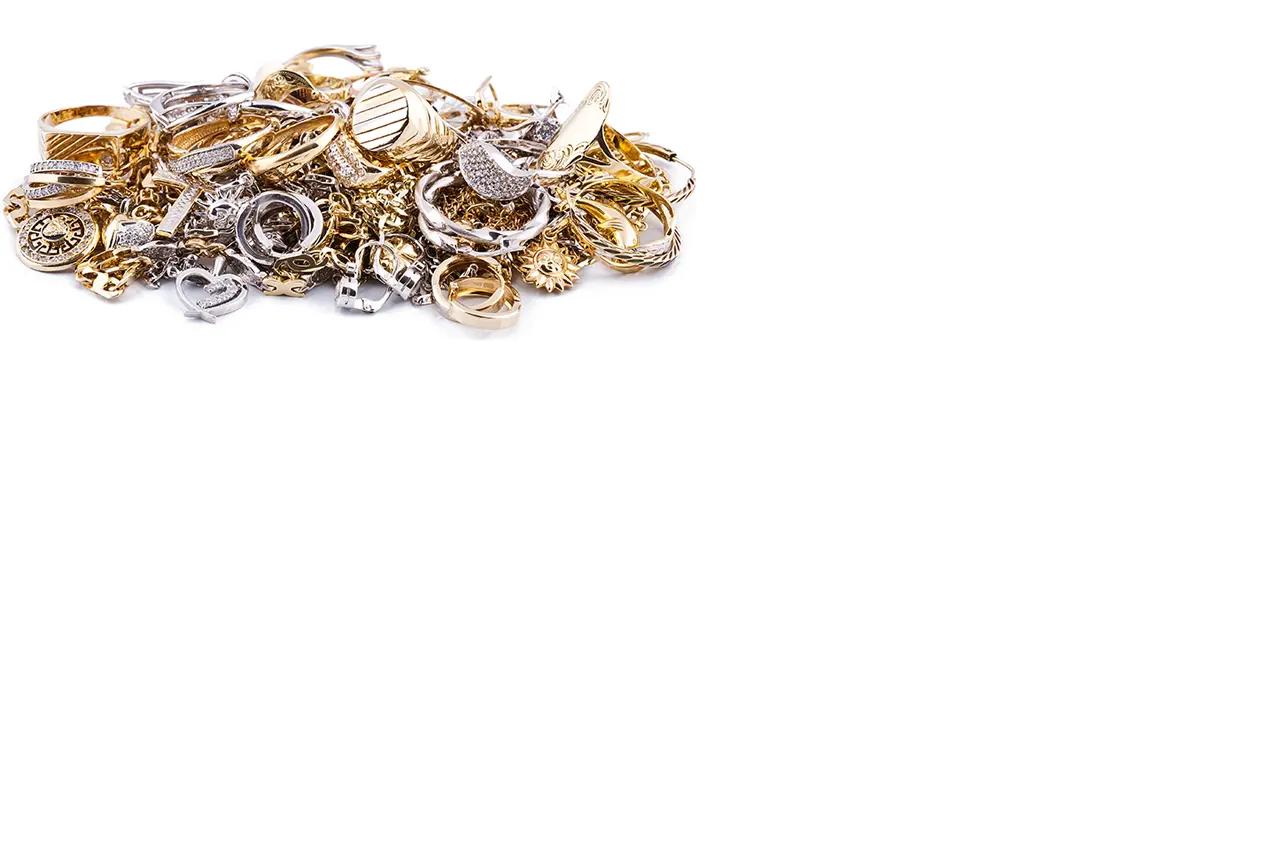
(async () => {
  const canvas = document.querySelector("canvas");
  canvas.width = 1288;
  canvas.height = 846;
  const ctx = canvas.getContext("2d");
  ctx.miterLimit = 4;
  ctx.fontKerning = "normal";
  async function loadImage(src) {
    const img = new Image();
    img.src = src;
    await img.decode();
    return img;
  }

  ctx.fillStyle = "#ffffff";
  ctx.fillRect(0, 0, 1288, 846);
  ctx.drawImage(await loadImage("img/1.png"), 0, 44, 697, 297);
})();
